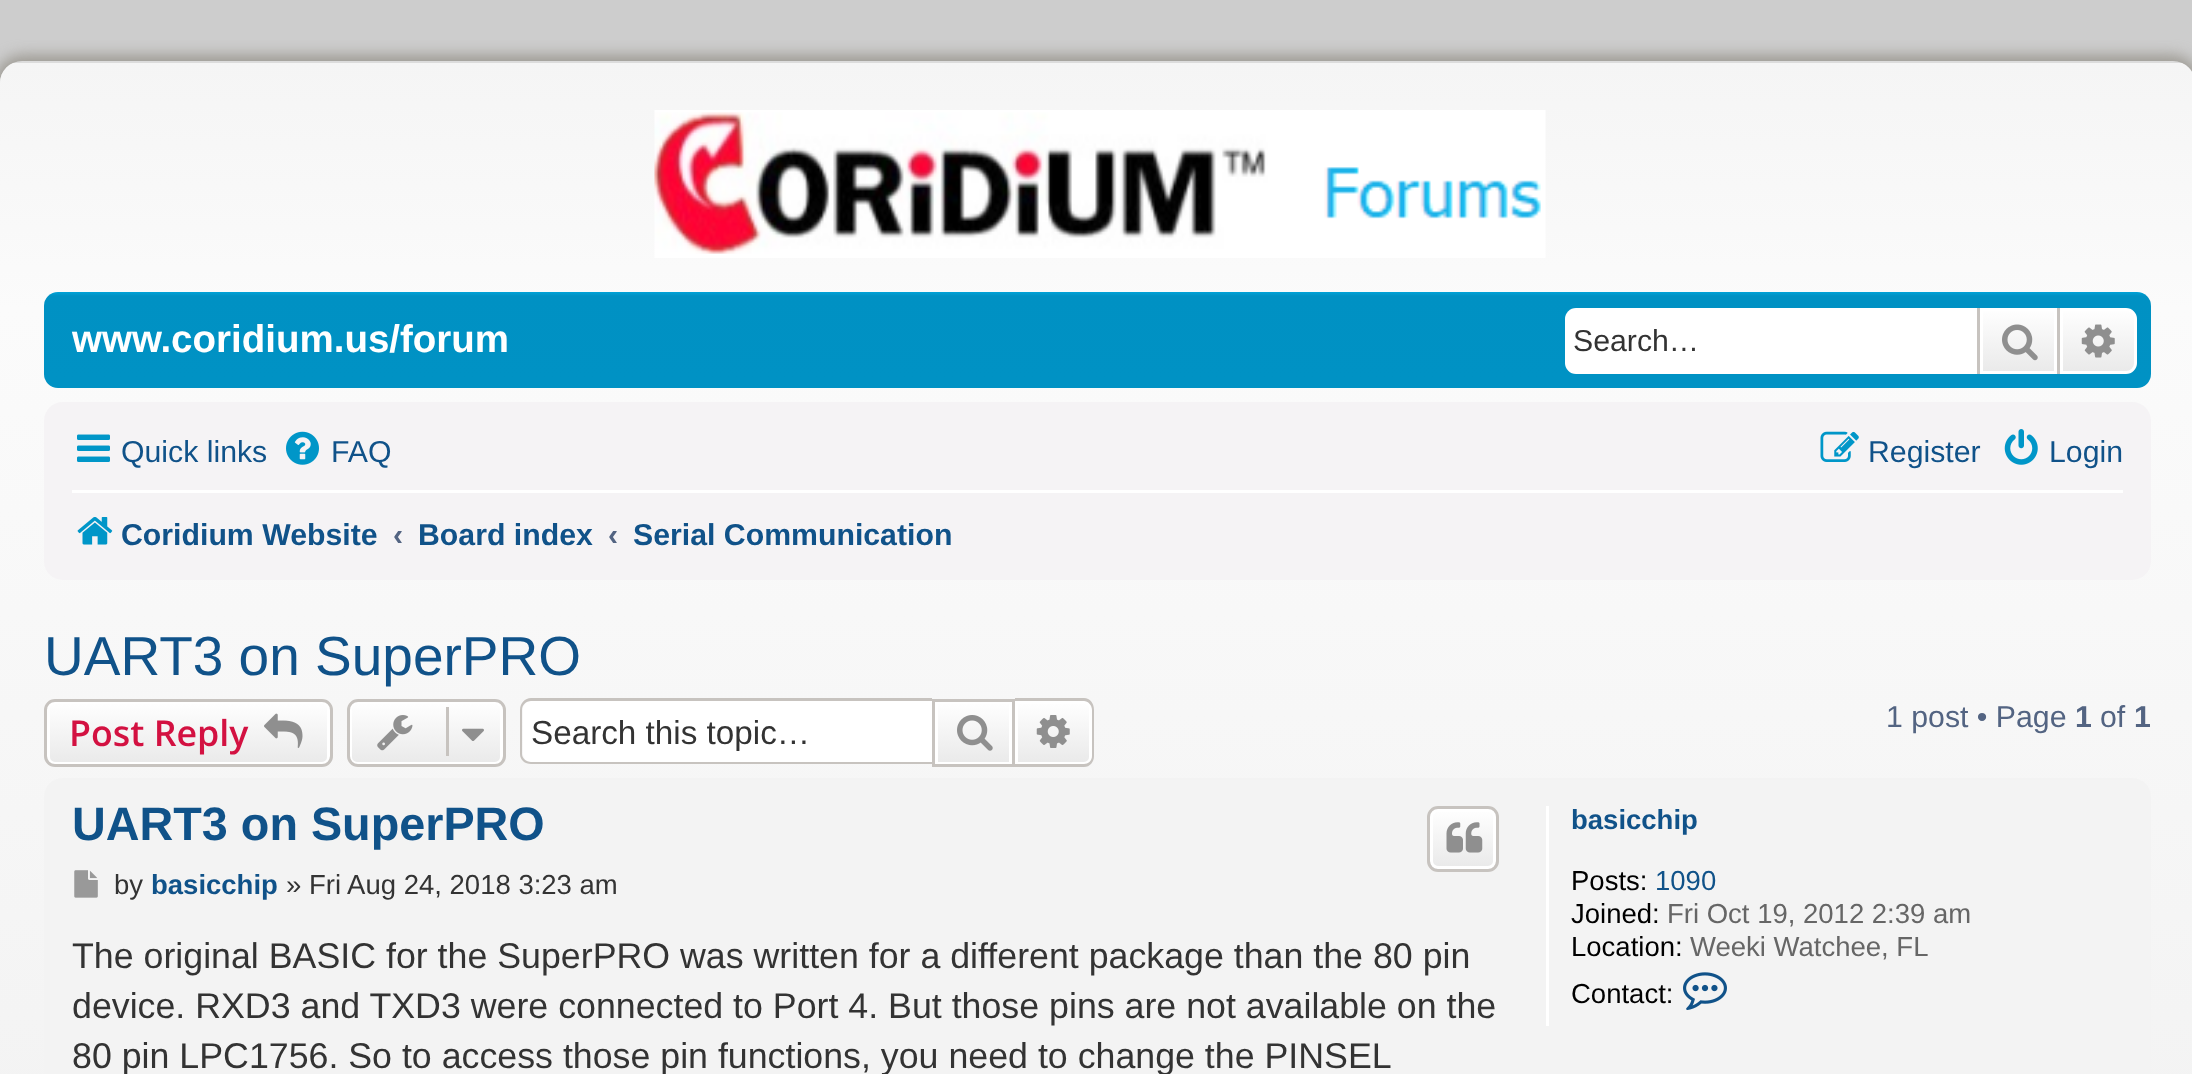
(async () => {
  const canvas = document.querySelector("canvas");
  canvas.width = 2192;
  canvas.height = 1074;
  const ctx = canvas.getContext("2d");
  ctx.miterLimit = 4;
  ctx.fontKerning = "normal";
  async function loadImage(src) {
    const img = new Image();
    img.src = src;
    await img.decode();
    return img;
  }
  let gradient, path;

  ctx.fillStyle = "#cdcdcd";
  ctx.fillRect(0, 0, 2192, 1074);
  ctx.fillStyle = "#9d9a93";
  ctx.filter = "blur(7px)";
  ctx.beginPath();
  ctx.roundRect(-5, 55, 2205, 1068, 28);
  ctx.fill();
  ctx.filter = "none";
  ctx.fillStyle = "#dcdcdc";
  ctx.beginPath();
  ctx.roundRect(0, 61, 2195, 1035, 22);
  ctx.fill();
  ctx.save();
  ctx.beginPath();
  ctx.roundRect(0, 61, 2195, 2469, 22);
  ctx.clip();
  gradient = ctx.createLinearGradient(1097, 63, 1097, 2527);
  gradient.addColorStop(0, "#d0d0d0");
  gradient.addColorStop(0, "#f5f5f5");
  gradient.addColorStop(0.1, "#fbfbfb");
  gradient.addColorStop(1, "#e5e5e5");
  ctx.fillStyle = gradient;
  ctx.fillRect(0, 63, 2192, 1011);
  ctx.restore();
  ctx.drawImage(await loadImage("img/1.png"), 654, 110, 892, 148);
  gradient = ctx.createLinearGradient(1097, 291, 1097, 544);
  gradient.addColorStop(0, "#01a6dc");
  gradient.addColorStop(0.02, "#0091c3");
  gradient.addColorStop(1, "#0094c6");
  gradient.addColorStop(1, "#01a6dc");
  ctx.fillStyle = gradient;
  ctx.beginPath();
  ctx.roundRect(44, 292, 2107, 96, 14);
  ctx.fill();
  ctx.fillStyle = "#ffffff";
  ctx.beginPath();
  ctx.roundRect(1565, 308, 412, 66, [11, 0, 0, 11]);
  ctx.fill();
  gradient = ctx.createLinearGradient(2019, 308, 2019, 374);
  gradient.addColorStop(0, "#ffffff");
  gradient.addColorStop(1, "#e9e9e9");
  ctx.fillStyle = gradient;
  ctx.fillRect(1983, 311, 71, 60);
  ctx.strokeStyle = "#ffffff";
  ctx.lineWidth = 3;
  ctx.strokeRect(1981.5, 309.5, 74, 63);
  ctx.fillStyle = "#c7c3bf";
  ctx.fillRect(2057, 308, 3, 66);
  ctx.fillRect(1977, 308, 3, 66);
  ctx.drawImage(await loadImage("img/2.png"), 2002, 324, 36, 37);
  gradient = ctx.createLinearGradient(2098, 308, 2098, 374);
  gradient.addColorStop(0, "#ffffff");
  gradient.addColorStop(1, "#e9e9e9");
  ctx.fillStyle = gradient;
  ctx.beginPath();
  ctx.roundRect(2061.5, 309.5, 74, 63, [0, 9.5, 9.5, 0]);
  ctx.fill();
  ctx.stroke();
  ctx.drawImage(await loadImage("img/3.png"), 2081, 324, 34, 34);
  ctx.fillStyle = "#f5f3f5";
  ctx.beginPath();
  ctx.roundRect(44, 402, 2107, 178, 19);
  ctx.fill();
  ctx.drawImage(await loadImage("img/4.png"), 77, 434, 33, 28);
  ctx.drawImage(await loadImage("img/5.png"), 286, 431, 33, 34);
  ctx.drawImage(await loadImage("img/6.png"), 1820, 431, 39, 31);
  ctx.drawImage(await loadImage("img/7.png"), 2004, 429, 34, 36);
  ctx.fillStyle = "#ffffff";
  ctx.fillRect(72, 490, 2051, 3);
  ctx.drawImage(await loadImage("img/8.png"), 77, 517, 36, 28);
  ctx.save();
  ctx.beginPath();
  ctx.roundRect(44, 699, 289, 68, 11);
  ctx.clip();
  gradient = ctx.createLinearGradient(188, 701, 188, 765);
  gradient.addColorStop(0, "#ffffff");
  gradient.addColorStop(1, "#e9e9e9");
  ctx.fillStyle = gradient;
  ctx.fillRect(44, 701, 289, 64);
  ctx.restore();
  ctx.beginPath();
  ctx.roundRect(48.5, 702.5, 280, 61, 6.5);
  ctx.stroke();
  ctx.beginPath();
  ctx.roundRect(45.5, 700.5, 286, 65, 9.5);
  ctx.strokeStyle = "#c7c3bf";
  ctx.stroke();
  ctx.drawImage(await loadImage("img/9.png"), 264, 713, 39, 35);
  ctx.save();
  ctx.beginPath();
  ctx.roundRect(347, 699, 159, 68, 11);
  ctx.clip();
  gradient = ctx.createLinearGradient(426, 701, 426, 765);
  gradient.addColorStop(0, "#ffffff");
  gradient.addColorStop(1, "#e9e9e9");
  ctx.fillStyle = gradient;
  ctx.fillRect(347, 701, 159, 64);
  ctx.restore();
  ctx.beginPath();
  ctx.roundRect(350.5, 702.5, 151, 61, 6.5);
  ctx.strokeStyle = "#ffffff";
  ctx.stroke();
  ctx.beginPath();
  ctx.roundRect(348.5, 700.5, 156, 65, 9.5);
  ctx.strokeStyle = "#c7c3bf";
  ctx.stroke();
  ctx.drawImage(await loadImage("img/10.png"), 377, 715, 36, 36);
  ctx.fillStyle = "#c7c3bf";
  ctx.fillRect(446, 707, 3, 49);
  ctx.drawImage(await loadImage("img/11.png"), 462, 728, 22, 13);
  ctx.fillStyle = "#ffffff";
  ctx.beginPath();
  ctx.roundRect(523, 701, 409, 61, [8, 0, 0, 8]);
  ctx.fill();
  ctx.fillStyle = "#c7c3bf";
  path = new Path2D("M531 698H932V764H531C525 764 520 760 520 754V710C520 703 525 698 531 698ZM531 701H932V762H531C526 762 522 758 522 754V710C522 705 526 701 531 701Z");
  ctx.fill(path, "evenodd");
  gradient = ctx.createLinearGradient(974, 701, 974, 765);
  gradient.addColorStop(0, "#ffffff");
  gradient.addColorStop(1, "#e9e9e9");
  ctx.fillStyle = gradient;
  ctx.fillRect(938, 704, 71, 58);
  ctx.strokeStyle = "#ffffff";
  ctx.strokeRect(936.5, 702.5, 74, 61);
  ctx.strokeStyle = "#c7c3bf";
  ctx.strokeRect(933.5, 700.5, 80, 65);
  ctx.drawImage(await loadImage("img/12.png"), 957, 715, 36, 36);
  gradient = ctx.createLinearGradient(1053, 701, 1053, 765);
  gradient.addColorStop(0, "#ffffff");
  gradient.addColorStop(1, "#e9e9e9");
  ctx.fillStyle = gradient;
  ctx.beginPath();
  ctx.roundRect(1016.5, 702.5, 74, 61, [0, 6.5, 6.5, 0]);
  ctx.fill();
  ctx.strokeStyle = "#ffffff";
  ctx.stroke();
  ctx.fillStyle = "#c7c3bf";
  path = new Path2D("M1015 698H1084C1090 698 1094 703 1094 710V756C1094 762 1090 767 1084 767H1015ZM1015 701H1084C1088 701 1092 705 1092 710V756C1092 761 1088 764 1084 764H1015Z");
  ctx.fill(path, "evenodd");
  ctx.drawImage(await loadImage("img/13.png"), 1036, 715, 34, 33);
  ctx.fillStyle = "#f3f3f3";
  ctx.beginPath();
  ctx.roundRect(44, 778, 2107, 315, 19);
  ctx.fill();
  ctx.save();
  ctx.beginPath();
  ctx.roundRect(1427, 806, 72, 66, 11);
  ctx.clip();
  gradient = ctx.createLinearGradient(1463, 809, 1463, 869);
  gradient.addColorStop(0, "#ffffff");
  gradient.addColorStop(1, "#e9e9e9");
  ctx.fillStyle = gradient;
  ctx.fillRect(1427, 809, 72, 60);
  ctx.restore();
  ctx.beginPath();
  ctx.roundRect(1431.5, 810.5, 63, 57, 6.5);
  ctx.stroke();
  ctx.beginPath();
  ctx.roundRect(1428.5, 807.5, 69, 63, 9.5);
  ctx.strokeStyle = "#c7c3bf";
  ctx.stroke();
  ctx.drawImage(await loadImage("img/14.png"), 1446, 822, 37, 31);
  ctx.drawImage(await loadImage("img/15.png"), 74, 870, 24, 28);
  ctx.fillStyle = "#ffffff";
  ctx.fillRect(1546, 806, 3, 220);
  ctx.drawImage(await loadImage("img/16.png"), 1683, 972, 44, 38);
  ctx.font = "bold 38.5px Liberation Sans";
  ctx.fillText("www.coridium.us/forum", 72, 352);
  ctx.font = "30.25px Liberation Sans";
  ctx.fillStyle = "#333333";
  ctx.fillText("Search…", 1573, 351);
  ctx.fillStyle = "#105289";
  for (const [text, x, y] of [
    ["Quick links", 121, 462],
    ["FAQ", 331, 462],
    ["Register", 1868, 462],
    ["Login", 2049, 462],
  ]) {
    ctx.fillText(text, x, y);
  }
  ctx.font = "bold 30.25px Liberation Sans";
  ctx.fillText("Coridium Website", 121, 545);
  ctx.fillStyle = "#536482";
  ctx.fillText("‹", 393, 545);
  ctx.fillStyle = "#105289";
  ctx.fillText("Board index", 418, 545);
  ctx.fillStyle = "#536482";
  ctx.fillText("‹", 608, 545);
  ctx.fillStyle = "#105289";
  ctx.fillText("Serial Communication", 633, 545);
  ctx.font = "55px Liberation Sans";
  ctx.fillText("UART3 on SuperPRO", 44, 675);
  ctx.font = "600 35.75px Open Sans";
  ctx.fillStyle = "#d31141";
  ctx.fillText("Post Reply", 69, 746);
  ctx.font = "33.25px Liberation Sans";
  ctx.fillStyle = "#333333";
  ctx.fillText("Search this topic…", 531, 744);
  ctx.font = "30.25px Liberation Sans";
  ctx.fillStyle = "#536482";
  ctx.fillText("1 post • Page", 1886, 727);
  ctx.font = "bold 30.25px Liberation Sans";
  ctx.fillText("1", 2075, 727);
  ctx.font = "30.25px Liberation Sans";
  ctx.fillText("of", 2100, 727);
  ctx.font = "bold 30.25px Liberation Sans";
  ctx.fillText("1", 2134, 727);
  ctx.font = "bold 46.75px Liberation Sans";
  ctx.fillStyle = "#105289";
  ctx.fillText("UART3 on SuperPRO", 72, 840);
  ctx.font = "27.5px Liberation Sans";
  ctx.fillStyle = "#333333";
  ctx.fillText("by", 114, 894);
  ctx.font = "bold 27.5px Liberation Sans";
  ctx.fillStyle = "#105289";
  ctx.fillText("basicchip", 151, 894);
  ctx.font = "27.5px Liberation Sans";
  ctx.fillStyle = "#333333";
  ctx.fillText("» Fri Aug 24, 2018 3:23 am", 286, 894);
  ctx.font = "35.75px Liberation Sans";
  for (const [text, x, y] of [
    ["The original BASIC for the SuperPRO was written for a different package than the 80 pin", 72, 968],
    ["device. RXD3 and TXD3 were connected to Port 4. But those pins are not available on the", 72, 1018],
    ["80 pin LPC1756. So to access those pin functions, you need to change the PINSEL", 72, 1068],
  ]) {
    ctx.fillText(text, x, y);
  }
  ctx.font = "bold 27.5px Liberation Sans";
  ctx.fillStyle = "#105289";
  ctx.fillText("basicchip", 1571, 829);
  ctx.font = "27.5px Liberation Sans";
  ctx.fillStyle = "#000000";
  ctx.fillText("Posts:", 1571, 890);
  ctx.fillStyle = "#105289";
  ctx.fillText("1090", 1655, 890);
  ctx.fillStyle = "#000000";
  ctx.fillText("Joined:", 1571, 923);
  ctx.fillStyle = "#666666";
  ctx.fillText("Fri Oct 19, 2012 2:39 am", 1667, 923);
  ctx.fillStyle = "#000000";
  ctx.fillText("Location:", 1571, 956);
  ctx.fillStyle = "#666666";
  ctx.fillText("Weeki Watchee, FL", 1690, 956);
  ctx.fillStyle = "#000000";
  ctx.fillText("Contact:", 1571, 1003);
})();
